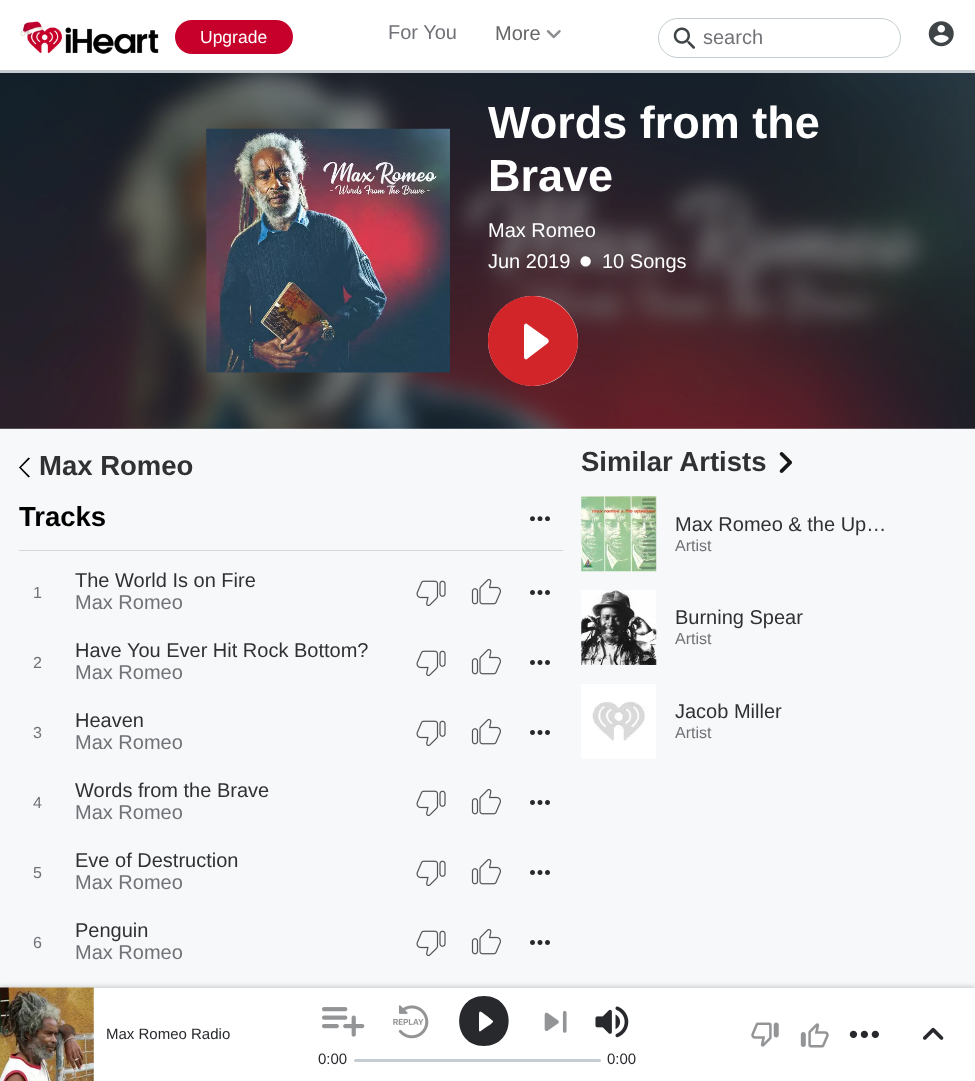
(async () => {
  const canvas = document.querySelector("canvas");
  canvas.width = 975;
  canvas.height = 1081;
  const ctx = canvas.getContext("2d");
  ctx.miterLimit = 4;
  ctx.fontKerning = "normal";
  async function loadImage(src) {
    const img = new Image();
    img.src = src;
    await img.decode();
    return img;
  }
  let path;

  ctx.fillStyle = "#ffffff";
  ctx.fillRect(0, 0, 975, 1081);
  ctx.fillStyle = "#c5cdd2";
  ctx.fillRect(0, 70, 975, 3);
  ctx.drawImage(await loadImage("img/1.png"), 20, 21, 139, 33);
  ctx.fillStyle = "#c6002b";
  ctx.beginPath();
  ctx.roundRect(175, 20, 118, 34, 17);
  ctx.fill();
  ctx.drawImage(await loadImage("img/2.png"), 546, 30, 15, 9);
  ctx.beginPath();
  ctx.roundRect(658.5, 18.5, 242, 39, 19.5);
  ctx.strokeStyle = "#c5cdd2";
  ctx.stroke();
  ctx.drawImage(await loadImage("img/3.png"), 673, 27, 22, 22);
  ctx.drawImage(await loadImage("img/4.png"), 928, 21, 26, 26);
  ctx.drawImage(await loadImage("img/5.png"), 0, 73, 975, 356);
  ctx.drawImage(await loadImage("img/6.png"), 206, 128, 244, 245);
  ctx.fillStyle = "#ffffff";
  ctx.beginPath();
  ctx.arc(533, 341, 45, 0, Math.PI * 2);
  ctx.fill();
  ctx.fillStyle = "#d2252a";
  path = new Path2D("M532 296C508 296 488 316 488 341C488 366 508 386 532 386C557 386 578 366 578 341C578 316 557 296 532 296ZM524 357V326C524 324 526 323 527 324L548 339C549 340 549 342 548 343L527 359C526 360 524 359 524 357Z");
  ctx.fill(path);
  ctx.fillStyle = "#f6f8f9";
  ctx.fillRect(0, 429, 975, 559);
  ctx.fillStyle = "#000000";
  path = new Path2D("M28.5 457.5L19 467.5L28.5 477.5L30 476.5L21 467.5L30 458.5Z");
  ctx.fill(path);
  ctx.fillStyle = "#d7d7d7";
  ctx.fillRect(19, 550, 544, 1);
  ctx.drawImage(await loadImage("img/7.png"), 530, 516, 20, 5);
  ctx.drawImage(await loadImage("img/8.png"), 416, 580, 30, 27);
  ctx.drawImage(await loadImage("img/9.png"), 471, 579, 30, 26);
  ctx.drawImage(await loadImage("img/10.png"), 530, 590, 20, 5);
  ctx.drawImage(await loadImage("img/8.png"), 416, 650, 30, 27);
  ctx.drawImage(await loadImage("img/9.png"), 471, 649, 30, 26);
  ctx.drawImage(await loadImage("img/10.png"), 530, 660, 20, 5);
  ctx.drawImage(await loadImage("img/8.png"), 416, 720, 30, 27);
  ctx.drawImage(await loadImage("img/9.png"), 471, 719, 30, 26);
  ctx.drawImage(await loadImage("img/10.png"), 530, 730, 20, 5);
  ctx.drawImage(await loadImage("img/8.png"), 416, 790, 30, 27);
  ctx.drawImage(await loadImage("img/9.png"), 471, 789, 30, 26);
  ctx.drawImage(await loadImage("img/10.png"), 530, 800, 20, 5);
  ctx.drawImage(await loadImage("img/8.png"), 416, 860, 30, 27);
  ctx.drawImage(await loadImage("img/9.png"), 471, 859, 30, 26);
  ctx.drawImage(await loadImage("img/10.png"), 530, 870, 20, 5);
  ctx.drawImage(await loadImage("img/8.png"), 416, 930, 30, 27);
  ctx.drawImage(await loadImage("img/9.png"), 471, 929, 30, 26);
  ctx.drawImage(await loadImage("img/10.png"), 530, 940, 20, 5);
  ctx.drawImage(await loadImage("img/11.png"), 779, 452, 14, 21);
  ctx.drawImage(await loadImage("img/12.png"), 581, 496, 76, 76);
  ctx.drawImage(await loadImage("img/13.png"), 581, 590, 76, 75);
  ctx.drawImage(await loadImage("img/14.png"), 581, 684, 75, 75);
  ctx.fillStyle = "rgba(0, 0, 0, 0.15)";
  ctx.filter = "blur(2px)";
  ctx.beginPath();
  ctx.rect(0, 986, 975, 94);
  ctx.fill();
  ctx.filter = "none";
  ctx.fillStyle = "#ffffff";
  ctx.fillRect(93, 988, 882, 93);
  ctx.drawImage(await loadImage("img/15.png"), 0, 987, 94, 94);
  ctx.drawImage(await loadImage("img/16.png"), 751, 1022, 28, 25);
  ctx.drawImage(await loadImage("img/17.png"), 800, 1023, 29, 25);
  ctx.drawImage(await loadImage("img/18.png"), 849, 1030, 30, 8);
  ctx.drawImage(await loadImage("img/19.png"), 923, 1027, 21, 13);
  ctx.drawImage(await loadImage("img/20.png"), 322, 1007, 43, 30);
  ctx.drawImage(await loadImage("img/21.png"), 393, 1005, 36, 34);
  ctx.fillStyle = "#27292d";
  path = new Path2D("M484 996C451 996 451 1046 484 1046C517 1046 517 996 484 996ZM479 1030V1015C479 1008 482 1013 487 1016L493 1021C494 1023 486 1027 485 1028C484 1028 479 1034 479 1030Z");
  ctx.fill(path);
  ctx.drawImage(await loadImage("img/22.png"), 544, 1011, 23, 22);
  ctx.drawImage(await loadImage("img/23.png"), 595, 1006, 34, 32);
  ctx.fillStyle = "#c5cdd2";
  ctx.beginPath();
  ctx.roundRect(354, 1059, 247, 3, 1.5);
  ctx.fill();
  ctx.font = "17.5px Liberation Sans";
  ctx.fillStyle = "#ffffff";
  ctx.fillText("Upgrade", 200, 43);
  ctx.font = "20px Liberation Sans";
  ctx.fillStyle = "#717277";
  ctx.fillText("For You", 388, 39);
  ctx.fillStyle = "#666666";
  ctx.fillText("More", 495, 40);
  ctx.fillStyle = "#717277";
  ctx.fillText("search", 703, 44);
  ctx.font = "bold 45px Liberation Sans";
  ctx.fillStyle = "#ffffff";
  ctx.fillText("Words from the", 488, 138);
  ctx.fillText("Brave", 488, 191);
  ctx.font = "20px Liberation Sans";
  ctx.fillText("Max Romeo", 488, 237);
  ctx.fillText("Jun 2019", 488, 268);
  ctx.font = "38px Liberation Sans";
  ctx.fillText("•", 579, 274);
  ctx.font = "20px Liberation Sans";
  ctx.fillText("10 Songs", 602, 268);
  ctx.font = "bold 27.5px Liberation Sans";
  ctx.fillStyle = "#2f3133";
  ctx.fillText("Max Romeo", 39, 475);
  ctx.fillStyle = "#000000";
  ctx.fillText("Tracks", 19, 526);
  ctx.font = "16px Liberation Sans";
  ctx.fillStyle = "#717277";
  ctx.fillText("1", 33, 598);
  ctx.font = "20px Liberation Sans";
  ctx.fillStyle = "#2f3133";
  ctx.fillText("The World Is on Fire", 75, 587);
  ctx.fillStyle = "#717277";
  ctx.fillText("Max Romeo", 75, 609);
  ctx.font = "16px Liberation Sans";
  ctx.fillText("2", 33, 668);
  ctx.font = "20px Liberation Sans";
  ctx.fillStyle = "#2f3133";
  ctx.fillText("Have You Ever Hit Rock Bottom?", 75, 657);
  ctx.fillStyle = "#717277";
  ctx.fillText("Max Romeo", 75, 679);
  ctx.font = "16px Liberation Sans";
  ctx.fillText("3", 33, 738);
  ctx.font = "20px Liberation Sans";
  ctx.fillStyle = "#2f3133";
  ctx.fillText("Heaven", 75, 727);
  ctx.fillStyle = "#717277";
  ctx.fillText("Max Romeo", 75, 749);
  ctx.font = "16px Liberation Sans";
  ctx.fillText("4", 33, 808);
  ctx.font = "20px Liberation Sans";
  ctx.fillStyle = "#2f3133";
  ctx.fillText("Words from the Brave", 75, 797);
  ctx.fillStyle = "#717277";
  ctx.fillText("Max Romeo", 75, 819);
  ctx.font = "16px Liberation Sans";
  ctx.fillText("5", 33, 878);
  ctx.font = "20px Liberation Sans";
  ctx.fillStyle = "#2f3133";
  ctx.fillText("Eve of Destruction", 75, 867);
  ctx.fillStyle = "#717277";
  ctx.fillText("Max Romeo", 75, 889);
  ctx.font = "16px Liberation Sans";
  ctx.fillText("6", 33, 948);
  ctx.font = "20px Liberation Sans";
  ctx.fillStyle = "#2f3133";
  ctx.fillText("Penguin", 75, 937);
  ctx.fillStyle = "#717277";
  ctx.fillText("Max Romeo", 75, 959);
  ctx.font = "bold 27.5px Liberation Sans";
  ctx.fillStyle = "#2f3133";
  ctx.fillText("Similar Artists", 581, 471);
  ctx.font = "20px Liberation Sans";
  ctx.fillText("Max Romeo & the Up…", 675, 531);
  ctx.font = "16px Liberation Sans";
  ctx.fillStyle = "#717277";
  ctx.fillText("Artist", 675, 551);
  ctx.font = "20px Liberation Sans";
  ctx.fillStyle = "#2f3133";
  ctx.fillText("Burning Spear", 675, 624);
  ctx.font = "16px Liberation Sans";
  ctx.fillStyle = "#717277";
  ctx.fillText("Artist", 675, 644);
  ctx.font = "20px Liberation Sans";
  ctx.fillStyle = "#2f3133";
  ctx.fillText("Jacob Miller", 675, 718);
  ctx.font = "16px Liberation Sans";
  ctx.fillStyle = "#717277";
  ctx.fillText("Artist", 675, 738);
  ctx.font = "15px Liberation Sans";
  ctx.fillStyle = "#27292d";
  for (const [text, x, y] of [
    ["Max Romeo Radio", 106, 1039],
    ["0:00", 318, 1064],
    ["0:00", 607, 1064],
  ]) {
    ctx.fillText(text, x, y);
  }
})();
